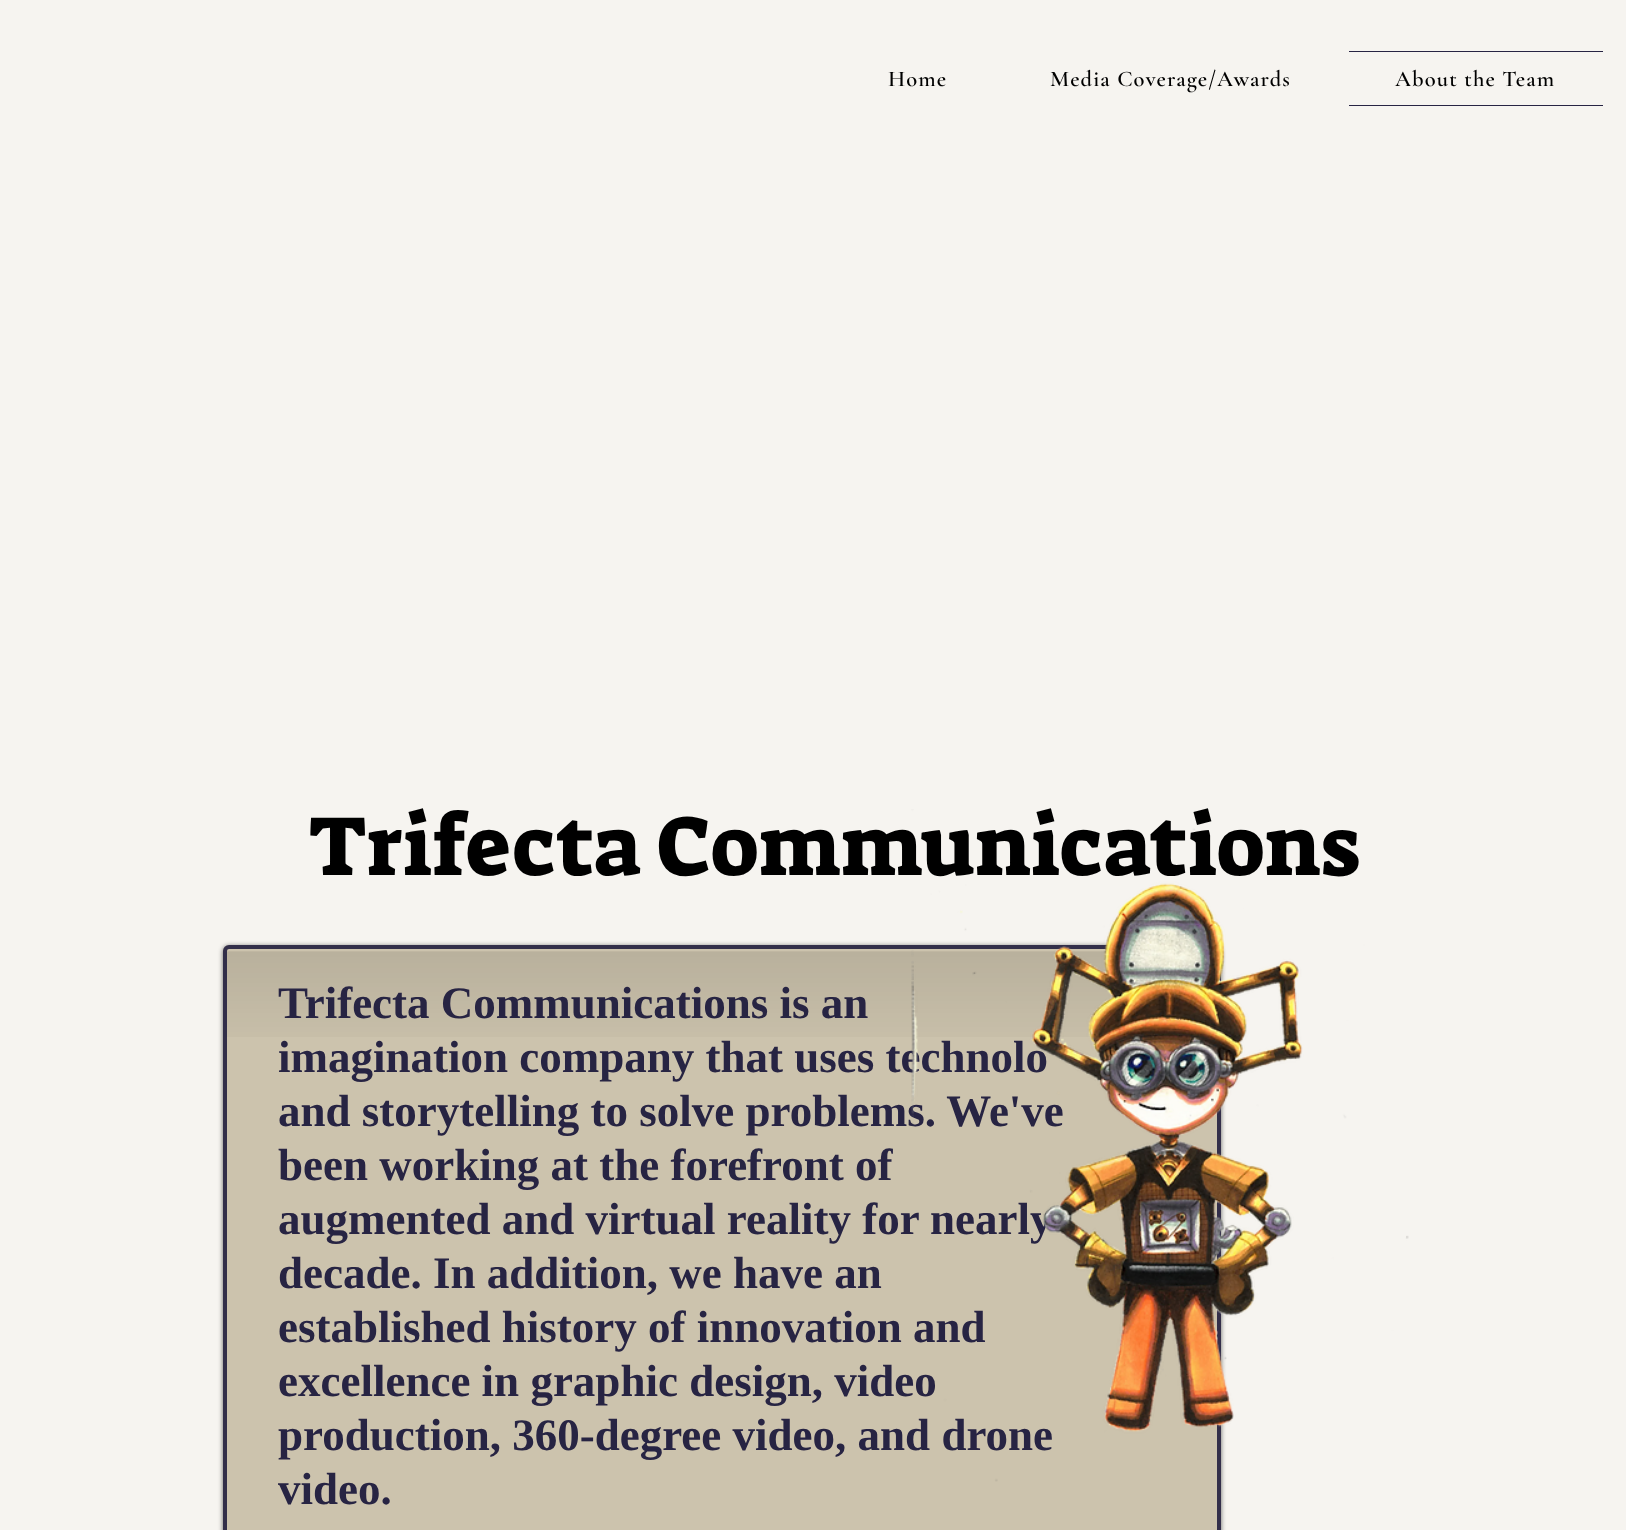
(async () => {
  const canvas = document.querySelector("canvas");
  canvas.width = 1626;
  canvas.height = 1530;
  const ctx = canvas.getContext("2d");
  ctx.miterLimit = 4;
  ctx.fontKerning = "normal";
  async function loadImage(src) {
    const img = new Image();
    img.src = src;
    await img.decode();
    return img;
  }

  ctx.fillStyle = "#f6f4f0";
  ctx.fillRect(0, 0, 1626, 1530);
  ctx.fillStyle = "#272443";
  ctx.fillRect(1349, 51, 254, 1);
  ctx.fillRect(1349, 105, 254, 1);
  ctx.fillStyle = "rgba(0, 0, 0, 0.6)";
  ctx.filter = "blur(2.5px)";
  ctx.beginPath();
  ctx.roundRect(223, 946, 998, 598, 6);
  ctx.fill();
  ctx.filter = "none";
  ctx.fillStyle = "#ccc3ad";
  ctx.beginPath();
  ctx.roundRect(223, 945, 998, 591, 6);
  ctx.fill();
  ctx.drawImage(await loadImage("img/1.png"), 223, 951, 998, 86);
  ctx.beginPath();
  ctx.roundRect(225, 947, 994, 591, 4);
  ctx.strokeStyle = "rgba(39, 36, 67, 0.93)";
  ctx.lineWidth = 4;
  ctx.stroke();
  ctx.letterSpacing = "1.1px";
  ctx.font = "600 22.5px Cormorant Garamond";
  ctx.fillStyle = "#000000";
  for (const [text, x, y] of [
    ["Home", 888, 86],
    ["Media Coverage/Awards", 1050, 86],
    ["About the Team", 1395, 86],
  ]) {
    ctx.fillText(text, x, y);
  }
  ctx.letterSpacing = "0px";
  ctx.font = "85px Suez One";
  ctx.fillText("Trifecta Communications", 308, 875);
  ctx.font = "bold 45px Liberation Serif";
  ctx.fillStyle = "#272443";
  for (const [text, x, y] of [
    ["Trifecta Communications is an", 278, 1018],
    ["imagination company that uses technolo", 278, 1072],
    ["and storytelling to solve problems. We've", 278, 1126],
    ["been working at the forefront of", 278, 1180],
    ["augmented and virtual reality for nearly", 278, 1234],
    ["decade. In addition, we have an", 278, 1288],
    ["established history of innovation and", 278, 1342],
    ["excellence in graphic design, video", 278, 1396],
    ["production, 360-degree video, and drone", 278, 1450],
    ["video.", 278, 1504],
  ]) {
    ctx.fillText(text, x, y);
  }
  ctx.drawImage(await loadImage("img/2.png"), 911, 809, 498, 673);
})();
